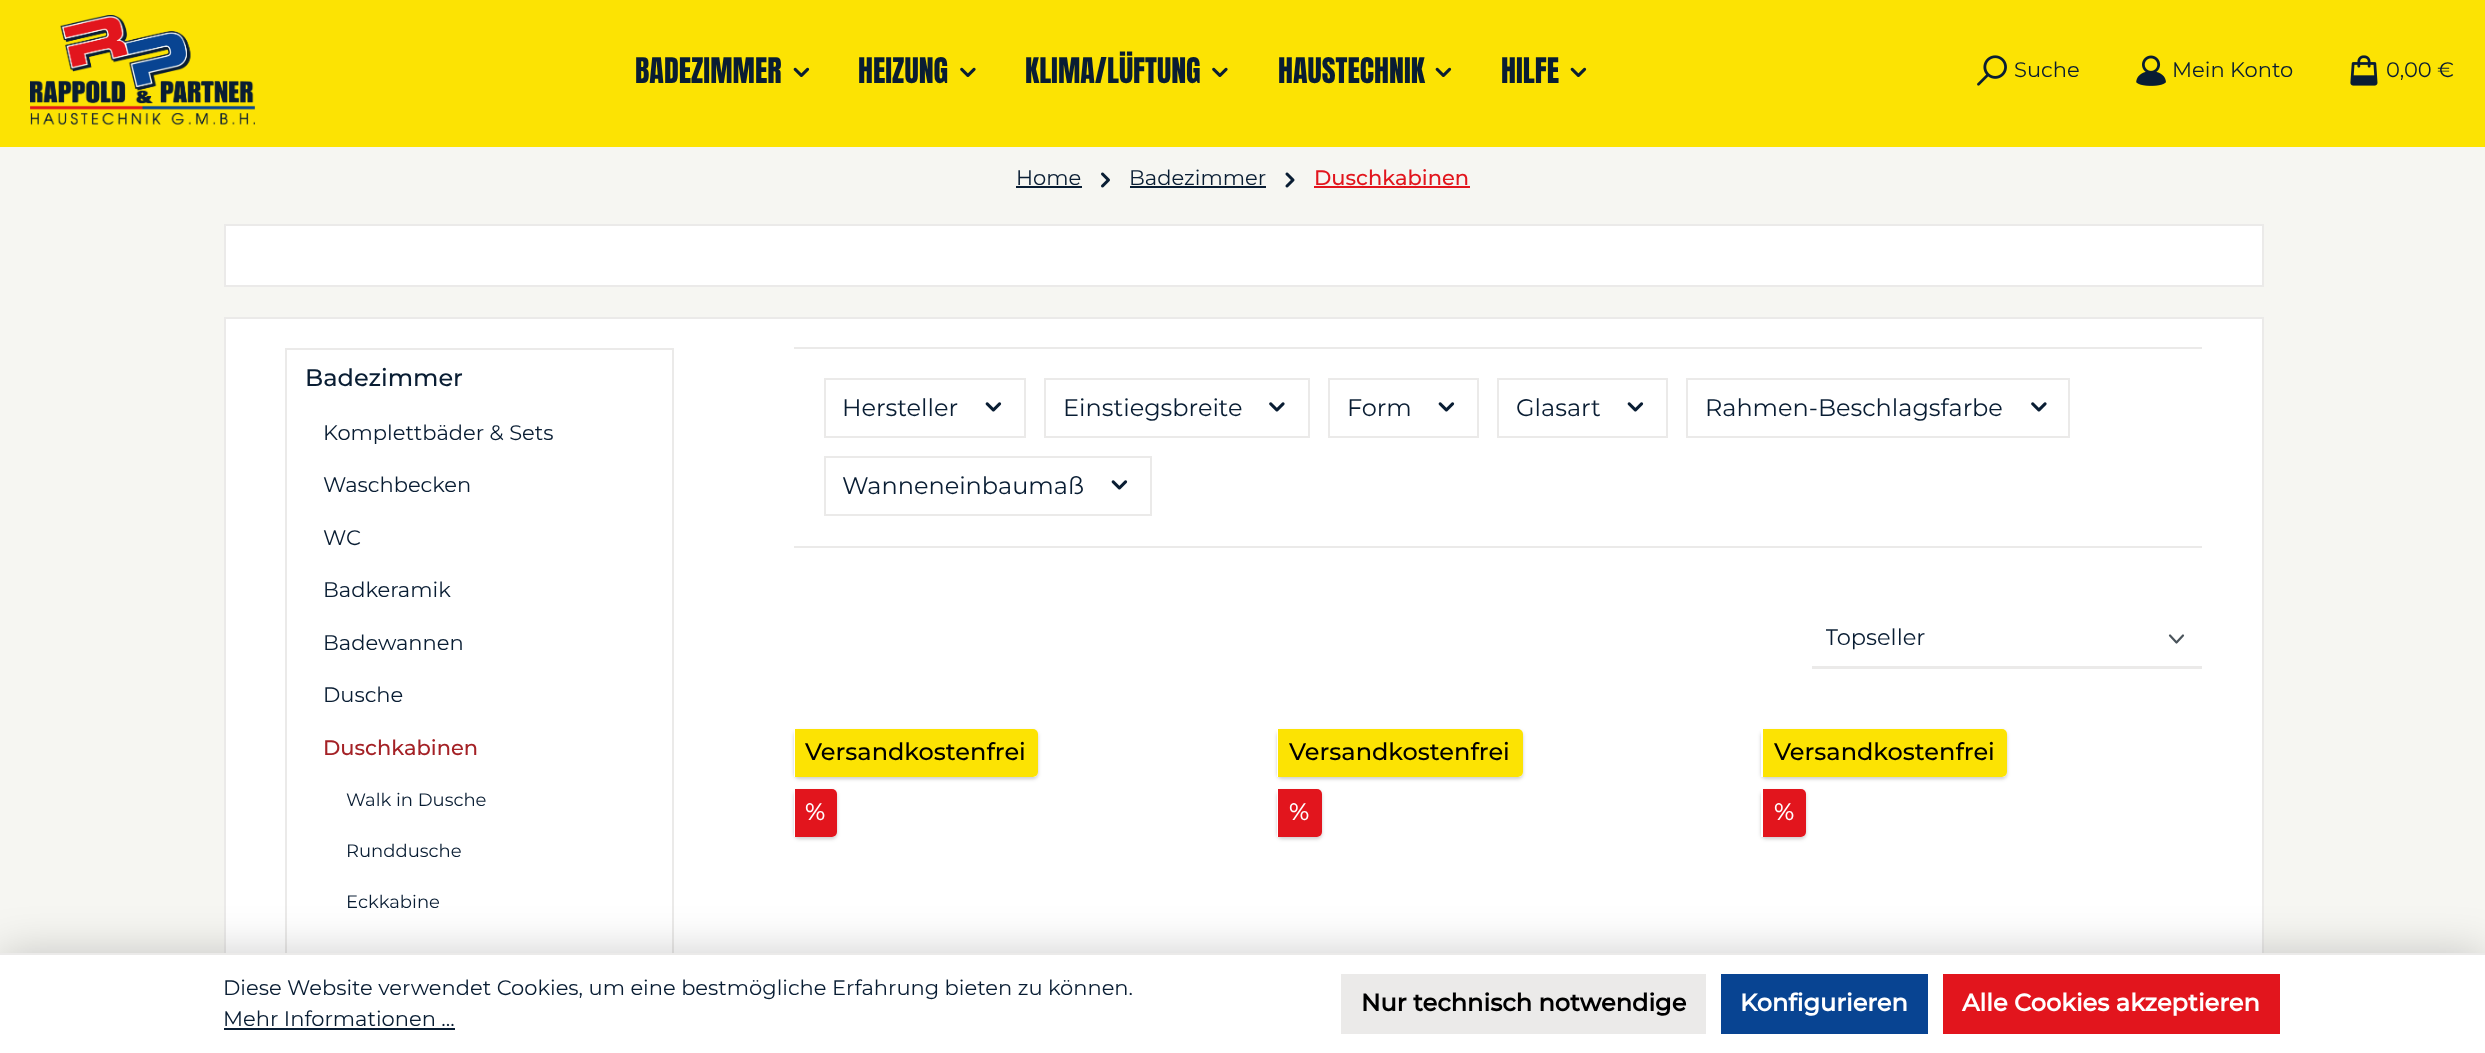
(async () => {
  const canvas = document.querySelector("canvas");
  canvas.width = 2485;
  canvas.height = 1053;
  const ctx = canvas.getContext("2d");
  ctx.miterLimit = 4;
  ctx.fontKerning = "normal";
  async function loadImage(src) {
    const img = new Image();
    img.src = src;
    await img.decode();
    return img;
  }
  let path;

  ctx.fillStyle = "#f6f6f2";
  ctx.fillRect(0, 0, 2485, 1053);
  ctx.fillStyle = "#fce303";
  ctx.fillRect(0, 0, 2485, 147);
  ctx.drawImage(await loadImage("img/1.png"), 30, 15, 225, 110);
  ctx.drawImage(await loadImage("img/2.png"), 793, 67, 17, 10);
  ctx.drawImage(await loadImage("img/3.png"), 960, 67, 16, 10);
  ctx.drawImage(await loadImage("img/3.png"), 1212, 67, 16, 10);
  ctx.drawImage(await loadImage("img/2.png"), 1435, 67, 17, 10);
  ctx.drawImage(await loadImage("img/2.png"), 1570, 67, 17, 10);
  ctx.drawImage(await loadImage("img/4.png"), 1977, 55, 30, 31);
  ctx.drawImage(await loadImage("img/5.png"), 2136, 55, 30, 31);
  ctx.drawImage(await loadImage("img/6.png"), 2350, 55, 28, 31);
  ctx.fillStyle = "#091d33";
  ctx.fillRect(1016, 186, 66, 2);
  ctx.drawImage(await loadImage("img/7.png"), 1101, 172, 9, 16);
  ctx.fillRect(1130, 186, 136, 2);
  ctx.drawImage(await loadImage("img/8.png"), 1285, 172, 10, 16);
  ctx.fillStyle = "#e2151d";
  ctx.fillRect(1314, 186, 156, 2);
  ctx.fillStyle = "#ffffff";
  ctx.beginPath();
  ctx.rect(225, 225, 2038, 61);
  ctx.fill();
  ctx.strokeStyle = "#ebeae9";
  ctx.lineWidth = 2;
  ctx.stroke();
  for (const [x, y, w, h, color] of [
    [226, 319, 2036, 634, "#ffffff"],
    [224, 317, 2040, 2, "#ebeae9"],
    [224, 317, 2, 636, "#ebeae9"],
  ]) {
    ctx.fillStyle = color;
    ctx.fillRect(x, y, w, h);
  }
  ctx.strokeRect(286, 349, 387, 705);
  for (const [x, y, w, h, color] of [
    [2262, 317, 2, 636, "#ebeae9"],
    [794, 347, 1408, 2, "#ebeae9"],
    [794, 546, 1408, 2, "#ebeae9"],
  ]) {
    ctx.fillStyle = color;
    ctx.fillRect(x, y, w, h);
  }
  ctx.strokeRect(825, 379, 200, 58);
  ctx.drawImage(await loadImage("img/9.png"), 985, 402, 17, 10);
  ctx.strokeRect(1045, 379, 264, 58);
  ctx.drawImage(await loadImage("img/10.png"), 1269, 402, 16, 10);
  ctx.strokeRect(1329, 379, 149, 58);
  ctx.drawImage(await loadImage("img/9.png"), 1438, 402, 17, 10);
  ctx.strokeRect(1498, 379, 169, 58);
  ctx.drawImage(await loadImage("img/9.png"), 1627, 402, 17, 10);
  ctx.strokeRect(1687, 379, 382, 58);
  ctx.drawImage(await loadImage("img/10.png"), 2031, 402, 16, 10);
  ctx.strokeRect(825, 457, 326, 58);
  ctx.drawImage(await loadImage("img/9.png"), 1111, 480, 17, 10);
  path = new Path2D("M2170 635.5L2176.5 642.5L2183 635.5");
  ctx.strokeStyle = "#4a545b";
  ctx.lineWidth = 2.2;
  ctx.lineCap = "round";
  ctx.lineJoin = "round";
  ctx.stroke(path);
  ctx.fillRect(1812, 666, 390, 3);
  ctx.save();
  path = new Path2D("M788 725H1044V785H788ZM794 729H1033C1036 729 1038 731 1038 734V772C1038 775 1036 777 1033 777H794Z");
  ctx.clip(path, "evenodd");
  ctx.fillStyle = "rgba(0, 0, 0, 0.1)";
  ctx.filter = "blur(1.5px)";
  ctx.beginPath();
  ctx.roundRect(794, 731, 244, 48, 5);
  ctx.fill();
  ctx.filter = "none";
  ctx.restore();
  ctx.save();
  path = new Path2D("M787 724H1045V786H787ZM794 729H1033C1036 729 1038 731 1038 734V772C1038 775 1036 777 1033 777H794Z");
  ctx.clip(path, "evenodd");
  ctx.fillStyle = "rgba(0, 0, 0, 0.1)";
  ctx.filter = "blur(2px)";
  ctx.beginPath();
  ctx.roundRect(794, 731, 244, 48, 5);
  ctx.fill();
  ctx.filter = "none";
  ctx.restore();
  ctx.fillStyle = "#fce303";
  ctx.beginPath();
  ctx.roundRect(795, 729, 243, 48, [0, 5, 5, 0]);
  ctx.fill();
  ctx.save();
  path = new Path2D("M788 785H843V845H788ZM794 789H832C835 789 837 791 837 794V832C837 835 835 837 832 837H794Z");
  ctx.clip(path, "evenodd");
  ctx.fillStyle = "rgba(0, 0, 0, 0.1)";
  ctx.filter = "blur(1.5px)";
  ctx.beginPath();
  ctx.roundRect(794, 791, 43, 48, 5);
  ctx.fill();
  ctx.filter = "none";
  ctx.restore();
  ctx.save();
  path = new Path2D("M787 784H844V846H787ZM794 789H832C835 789 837 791 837 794V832C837 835 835 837 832 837H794Z");
  ctx.clip(path, "evenodd");
  ctx.fillStyle = "rgba(0, 0, 0, 0.1)";
  ctx.filter = "blur(2px)";
  ctx.beginPath();
  ctx.roundRect(794, 791, 43, 48, 5);
  ctx.fill();
  ctx.filter = "none";
  ctx.restore();
  ctx.fillStyle = "#e2151d";
  ctx.beginPath();
  ctx.roundRect(795, 789, 42, 48, [0, 5, 5, 0]);
  ctx.fill();
  ctx.save();
  path = new Path2D("M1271 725H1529V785H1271ZM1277 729H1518C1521 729 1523 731 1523 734V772C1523 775 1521 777 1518 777H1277Z");
  ctx.clip(path, "evenodd");
  ctx.fillStyle = "rgba(0, 0, 0, 0.1)";
  ctx.filter = "blur(1.5px)";
  ctx.beginPath();
  ctx.roundRect(1277, 731, 246, 48, 5);
  ctx.fill();
  ctx.filter = "none";
  ctx.restore();
  ctx.save();
  path = new Path2D("M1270 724H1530V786H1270ZM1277 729H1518C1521 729 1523 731 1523 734V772C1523 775 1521 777 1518 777H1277Z");
  ctx.clip(path, "evenodd");
  ctx.fillStyle = "rgba(0, 0, 0, 0.1)";
  ctx.filter = "blur(2px)";
  ctx.beginPath();
  ctx.roundRect(1277, 731, 246, 48, 5);
  ctx.fill();
  ctx.filter = "none";
  ctx.restore();
  ctx.fillStyle = "#fce303";
  ctx.beginPath();
  ctx.roundRect(1278, 729, 245, 48, [0, 5, 5, 0]);
  ctx.fill();
  ctx.save();
  path = new Path2D("M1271 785H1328V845H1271ZM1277 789H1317C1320 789 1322 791 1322 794V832C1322 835 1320 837 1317 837H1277Z");
  ctx.clip(path, "evenodd");
  ctx.fillStyle = "rgba(0, 0, 0, 0.1)";
  ctx.filter = "blur(1.5px)";
  ctx.beginPath();
  ctx.roundRect(1277, 791, 45, 48, 5);
  ctx.fill();
  ctx.filter = "none";
  ctx.restore();
  ctx.save();
  path = new Path2D("M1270 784H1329V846H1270ZM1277 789H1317C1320 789 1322 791 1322 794V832C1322 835 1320 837 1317 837H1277Z");
  ctx.clip(path, "evenodd");
  ctx.fillStyle = "rgba(0, 0, 0, 0.1)";
  ctx.filter = "blur(2px)";
  ctx.beginPath();
  ctx.roundRect(1277, 791, 45, 48, 5);
  ctx.fill();
  ctx.filter = "none";
  ctx.restore();
  ctx.fillStyle = "#e2151d";
  ctx.beginPath();
  ctx.roundRect(1278, 789, 44, 48, [0, 5, 5, 0]);
  ctx.fill();
  ctx.save();
  path = new Path2D("M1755 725H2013V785H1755ZM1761 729H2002C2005 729 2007 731 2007 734V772C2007 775 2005 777 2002 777H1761Z");
  ctx.clip(path, "evenodd");
  ctx.fillStyle = "rgba(0, 0, 0, 0.1)";
  ctx.filter = "blur(1.5px)";
  ctx.beginPath();
  ctx.roundRect(1761, 731, 246, 48, 5);
  ctx.fill();
  ctx.filter = "none";
  ctx.restore();
  ctx.save();
  path = new Path2D("M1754 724H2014V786H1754ZM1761 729H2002C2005 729 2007 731 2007 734V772C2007 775 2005 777 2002 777H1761Z");
  ctx.clip(path, "evenodd");
  ctx.fillStyle = "rgba(0, 0, 0, 0.1)";
  ctx.filter = "blur(2px)";
  ctx.beginPath();
  ctx.roundRect(1761, 731, 246, 48, 5);
  ctx.fill();
  ctx.filter = "none";
  ctx.restore();
  ctx.fillStyle = "#fce303";
  ctx.beginPath();
  ctx.roundRect(1763, 729, 244, 48, [0, 5, 5, 0]);
  ctx.fill();
  ctx.save();
  path = new Path2D("M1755 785H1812V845H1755ZM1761 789H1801C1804 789 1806 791 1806 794V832C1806 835 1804 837 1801 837H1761Z");
  ctx.clip(path, "evenodd");
  ctx.fillStyle = "rgba(0, 0, 0, 0.1)";
  ctx.filter = "blur(1.5px)";
  ctx.beginPath();
  ctx.roundRect(1761, 791, 45, 48, 5);
  ctx.fill();
  ctx.filter = "none";
  ctx.restore();
  ctx.save();
  path = new Path2D("M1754 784H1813V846H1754ZM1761 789H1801C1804 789 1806 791 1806 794V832C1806 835 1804 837 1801 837H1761Z");
  ctx.clip(path, "evenodd");
  ctx.fillStyle = "rgba(0, 0, 0, 0.1)";
  ctx.filter = "blur(2px)";
  ctx.beginPath();
  ctx.roundRect(1761, 791, 45, 48, 5);
  ctx.fill();
  ctx.filter = "none";
  ctx.restore();
  ctx.fillStyle = "#e2151d";
  ctx.beginPath();
  ctx.roundRect(1763, 789, 43, 48, [0, 5, 5, 0]);
  ctx.fill();
  ctx.fillStyle = "rgba(0, 0, 0, 0.2)";
  ctx.filter = "blur(22.5px)";
  ctx.beginPath();
  ctx.rect(0, 953, 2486, 100);
  ctx.fill();
  ctx.filter = "none";
  for (const [x, y, w, h, color] of [
    [0, 955, 2485, 98, "#ffffff"],
    [0, 953, 2485, 2, "#ebeae9"],
    [224, 1028, 231, 2, "#091d33"],
    [1341, 974, 365, 60, "#ebeae9"],
    [1721, 974, 207, 60, "#084492"],
    [1943, 974, 337, 60, "#e2151d"],
  ]) {
    ctx.fillStyle = color;
    ctx.fillRect(x, y, w, h);
  }
  ctx.font = "30px Anton";
  ctx.fillStyle = "#091d33";
  for (const [text, x, y] of [
    ["BADEZIMMER", 635, 83],
    ["HEIZUNG", 858, 83],
    ["KLIMA/LÜFTUNG", 1025, 83],
    ["HAUSTECHNIK", 1278, 83],
    ["HILFE", 1501, 83],
  ]) {
    ctx.fillText(text, x, y);
  }
  ctx.font = "21px Montserrat";
  for (const [text, x, y] of [
    ["Suche", 2014, 77],
    ["Mein Konto", 2172, 77],
    ["0,00 €", 2386, 77],
    ["Home", 1016, 185],
    ["Badezimmer", 1129, 185],
  ]) {
    ctx.fillText(text, x, y);
  }
  ctx.font = "500 21px Montserrat";
  ctx.fillStyle = "#e2151d";
  ctx.fillText("Duschkabinen", 1314, 185);
  ctx.font = "500 24px Montserrat";
  ctx.fillStyle = "#091d33";
  ctx.fillText("Badezimmer", 305, 386);
  ctx.font = "21px Montserrat";
  for (const [text, x, y] of [
    ["Komplettbäder & Sets", 323, 440],
    ["Waschbecken", 323, 492],
    ["WC", 323, 545],
    ["Badkeramik", 323, 597],
    ["Badewannen", 323, 650],
    ["Dusche", 323, 702],
  ]) {
    ctx.fillText(text, x, y);
  }
  ctx.font = "500 21px Montserrat";
  ctx.fillStyle = "#a42126";
  ctx.fillText("Duschkabinen", 323, 755);
  ctx.font = "18px Montserrat";
  ctx.fillStyle = "#091d33";
  for (const [text, x, y] of [
    ["Walk in Dusche", 346, 806],
    ["Runddusche", 346, 857],
    ["Eckkabine", 346, 908],
  ]) {
    ctx.fillText(text, x, y);
  }
  ctx.font = "24px Montserrat";
  for (const [text, x, y] of [
    ["Hersteller", 842, 416],
    ["Einstiegsbreite", 1063, 416],
    ["Form", 1347, 416],
    ["Glasart", 1516, 416],
    ["Rahmen-Beschlagsfarbe", 1705, 416],
    ["Wanneneinbaumaß", 842, 494],
  ]) {
    ctx.fillText(text, x, y);
  }
  ctx.save();
  ctx.beginPath();
  ctx.rect(1826, 621, 336, 35);
  ctx.clip();
  ctx.font = "22.5px Montserrat";
  ctx.fillText("Topseller", 1825, 645);
  ctx.restore();
  ctx.font = "500 24px Montserrat";
  ctx.fillStyle = "#000000";
  ctx.fillText("Versandkostenfrei", 805, 760);
  ctx.fillStyle = "#ffffff";
  ctx.fillText("%", 805, 820);
  ctx.fillStyle = "#000000";
  ctx.fillText("Versandkostenfrei", 1289, 760);
  ctx.fillStyle = "#ffffff";
  ctx.fillText("%", 1289, 820);
  ctx.fillStyle = "#000000";
  ctx.fillText("Versandkostenfrei", 1774, 760);
  ctx.fillStyle = "#ffffff";
  ctx.fillText("%", 1774, 820);
  ctx.font = "21px Montserrat";
  ctx.fillStyle = "#091d33";
  ctx.fillText("Diese Website verwendet Cookies, um eine bestmögliche Erfahrung bieten zu können.", 223, 995);
  ctx.fillText("Mehr Informationen ...", 223, 1026);
  ctx.font = "bold 24px Montserrat";
  ctx.fillStyle = "#000000";
  ctx.fillText("Nur technisch notwendige", 1361, 1011);
  ctx.fillStyle = "#ffffff";
  ctx.fillText("Konfigurieren", 1740, 1011);
  ctx.fillText("Alle Cookies akzeptieren", 1962, 1011);
})();
